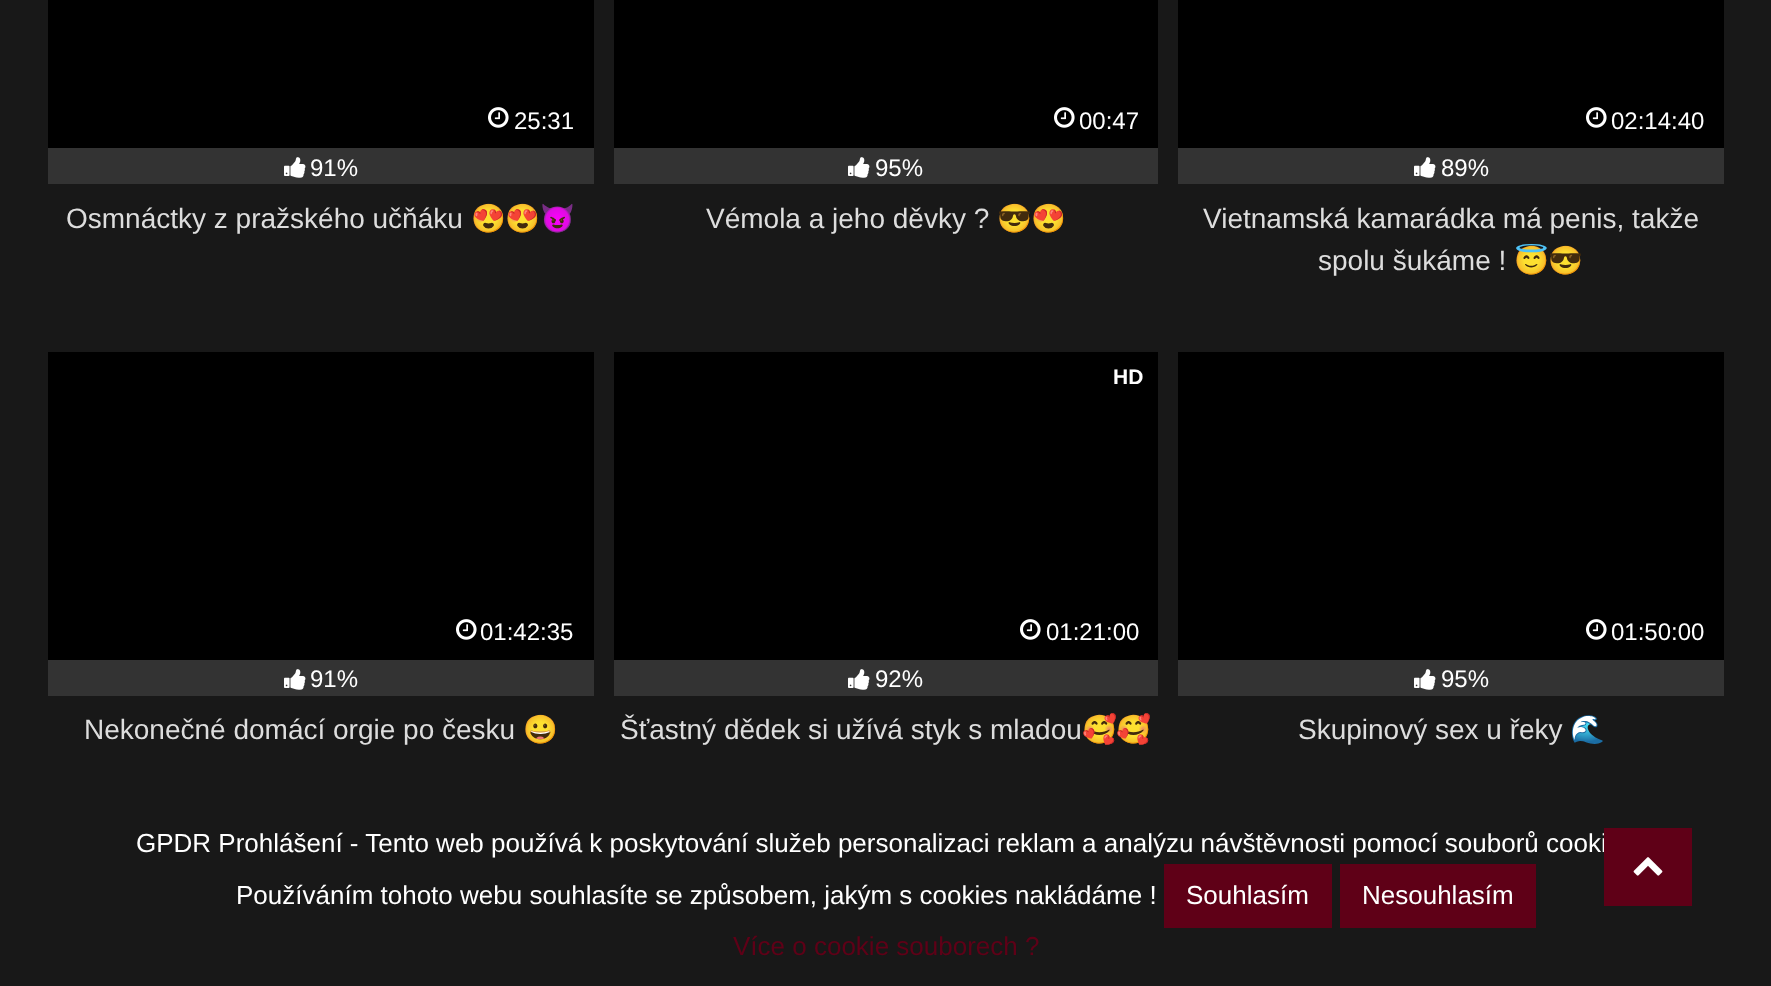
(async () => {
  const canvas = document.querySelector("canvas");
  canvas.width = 1771;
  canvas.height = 986;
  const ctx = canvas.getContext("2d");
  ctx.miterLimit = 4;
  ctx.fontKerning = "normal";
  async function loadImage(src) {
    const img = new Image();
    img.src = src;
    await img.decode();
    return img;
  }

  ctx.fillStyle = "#181818";
  ctx.fillRect(0, 0, 1771, 986);
  ctx.fillStyle = "#000000";
  ctx.fillRect(48, 0, 546, 148);
  ctx.drawImage(await loadImage("img/1.png"), 488, 107, 21, 21);
  ctx.fillStyle = "#333333";
  ctx.fillRect(48, 148, 546, 36);
  ctx.drawImage(await loadImage("img/2.png"), 284, 157, 22, 21);
  ctx.fillStyle = "#000000";
  ctx.fillRect(614, 0, 544, 148);
  ctx.drawImage(await loadImage("img/1.png"), 1054, 107, 21, 21);
  ctx.fillStyle = "#333333";
  ctx.fillRect(614, 148, 544, 36);
  ctx.drawImage(await loadImage("img/2.png"), 848, 157, 22, 21);
  ctx.fillStyle = "#000000";
  ctx.fillRect(1178, 0, 546, 148);
  ctx.drawImage(await loadImage("img/1.png"), 1586, 107, 21, 21);
  ctx.fillStyle = "#333333";
  ctx.fillRect(1178, 148, 546, 36);
  ctx.drawImage(await loadImage("img/2.png"), 1414, 157, 22, 21);
  ctx.fillStyle = "#000000";
  ctx.fillRect(48, 352, 546, 308);
  ctx.drawImage(await loadImage("img/1.png"), 456, 619, 21, 21);
  ctx.fillStyle = "#333333";
  ctx.fillRect(48, 660, 546, 36);
  ctx.drawImage(await loadImage("img/2.png"), 284, 669, 22, 21);
  ctx.fillStyle = "#000000";
  ctx.fillRect(614, 352, 544, 308);
  ctx.drawImage(await loadImage("img/1.png"), 1020, 619, 21, 21);
  ctx.fillStyle = "#333333";
  ctx.fillRect(614, 660, 544, 36);
  ctx.drawImage(await loadImage("img/2.png"), 848, 669, 22, 21);
  ctx.fillStyle = "#000000";
  ctx.fillRect(1178, 352, 546, 308);
  ctx.drawImage(await loadImage("img/1.png"), 1586, 619, 21, 21);
  ctx.fillStyle = "#333333";
  ctx.fillRect(1178, 660, 546, 36);
  ctx.drawImage(await loadImage("img/2.png"), 1414, 669, 22, 21);
  ctx.fillStyle = "#5f0017";
  ctx.fillRect(1164, 864, 168, 64);
  ctx.fillRect(1340, 864, 196, 64);
  ctx.font = "24px Liberation Sans";
  ctx.fillStyle = "#ffffff";
  ctx.fillText("25:31", 514, 129);
  ctx.fillText("91%", 310, 176);
  ctx.font = "28px Liberation Sans";
  ctx.fillStyle = "#dddddd";
  ctx.fillText("Osmnáctky z pražského učňáku", 66, 228);
  ctx.font = "28px Noto Color Emoji";
  ctx.fillText("😍😍😈", 471, 228);
  ctx.font = "24px Liberation Sans";
  ctx.fillStyle = "#ffffff";
  ctx.fillText("00:47", 1079, 129);
  ctx.fillText("95%", 875, 176);
  ctx.font = "28px Liberation Sans";
  ctx.fillStyle = "#dddddd";
  ctx.fillText("Vémola a jeho děvky ?", 706, 228);
  ctx.font = "28px Noto Color Emoji";
  ctx.fillText("😎😍", 997, 228);
  ctx.font = "24px Liberation Sans";
  ctx.fillStyle = "#ffffff";
  ctx.fillText("02:14:40", 1611, 129);
  ctx.fillText("89%", 1441, 176);
  ctx.font = "28px Liberation Sans";
  ctx.fillStyle = "#dddddd";
  ctx.fillText("Vietnamská kamarádka má penis, takže", 1203, 228);
  ctx.fillText("spolu šukáme !", 1318, 270);
  ctx.font = "28px Noto Color Emoji";
  ctx.fillText("😇😎", 1514, 270);
  ctx.font = "24px Liberation Sans";
  ctx.fillStyle = "#ffffff";
  ctx.fillText("01:42:35", 480, 640);
  ctx.fillText("91%", 310, 687);
  ctx.font = "28px Liberation Sans";
  ctx.fillStyle = "#dddddd";
  ctx.fillText("Nekonečné domácí orgie po česku", 84, 739);
  ctx.font = "28px Noto Color Emoji";
  ctx.fillText("😀", 523, 739);
  ctx.font = "bold 21px Liberation Sans";
  ctx.fillStyle = "#ffffff";
  ctx.fillText("HD", 1113, 384);
  ctx.font = "24px Liberation Sans";
  ctx.fillText("01:21:00", 1046, 640);
  ctx.fillText("92%", 875, 687);
  ctx.font = "28px Liberation Sans";
  ctx.fillStyle = "#dddddd";
  ctx.fillText("Šťastný dědek si užívá styk s mladou", 620, 739);
  ctx.font = "28px Noto Color Emoji";
  ctx.fillText("🥰🥰", 1082, 739);
  ctx.font = "24px Liberation Sans";
  ctx.fillStyle = "#ffffff";
  ctx.fillText("01:50:00", 1611, 640);
  ctx.fillText("95%", 1441, 687);
  ctx.font = "28px Liberation Sans";
  ctx.fillStyle = "#dddddd";
  ctx.fillText("Skupinový sex u řeky", 1298, 739);
  ctx.font = "28px Noto Color Emoji";
  ctx.fillText("🌊", 1570, 739);
  ctx.font = "26px Liberation Sans";
  ctx.fillStyle = "#ffffff";
  for (const [text, x, y] of [
    ["GPDR Prohlášení - Tento web používá k poskytování služeb personalizaci reklam a analýzu návštěvnosti pomocí souborů cooki", 136, 852],
    ["Používáním tohoto webu souhlasíte se způsobem, jakým s cookies nakládáme !", 236, 904],
    ["Souhlasím", 1186, 904],
    ["Nesouhlasím", 1362, 904],
  ]) {
    ctx.fillText(text, x, y);
  }
  ctx.fillStyle = "#5f0017";
  ctx.fillText("Více o cookie souborech ?", 733, 955);
  ctx.fillRect(1604, 828, 88, 78);
  ctx.drawImage(await loadImage("img/3.png"), 1633, 857, 30, 19);
})();
